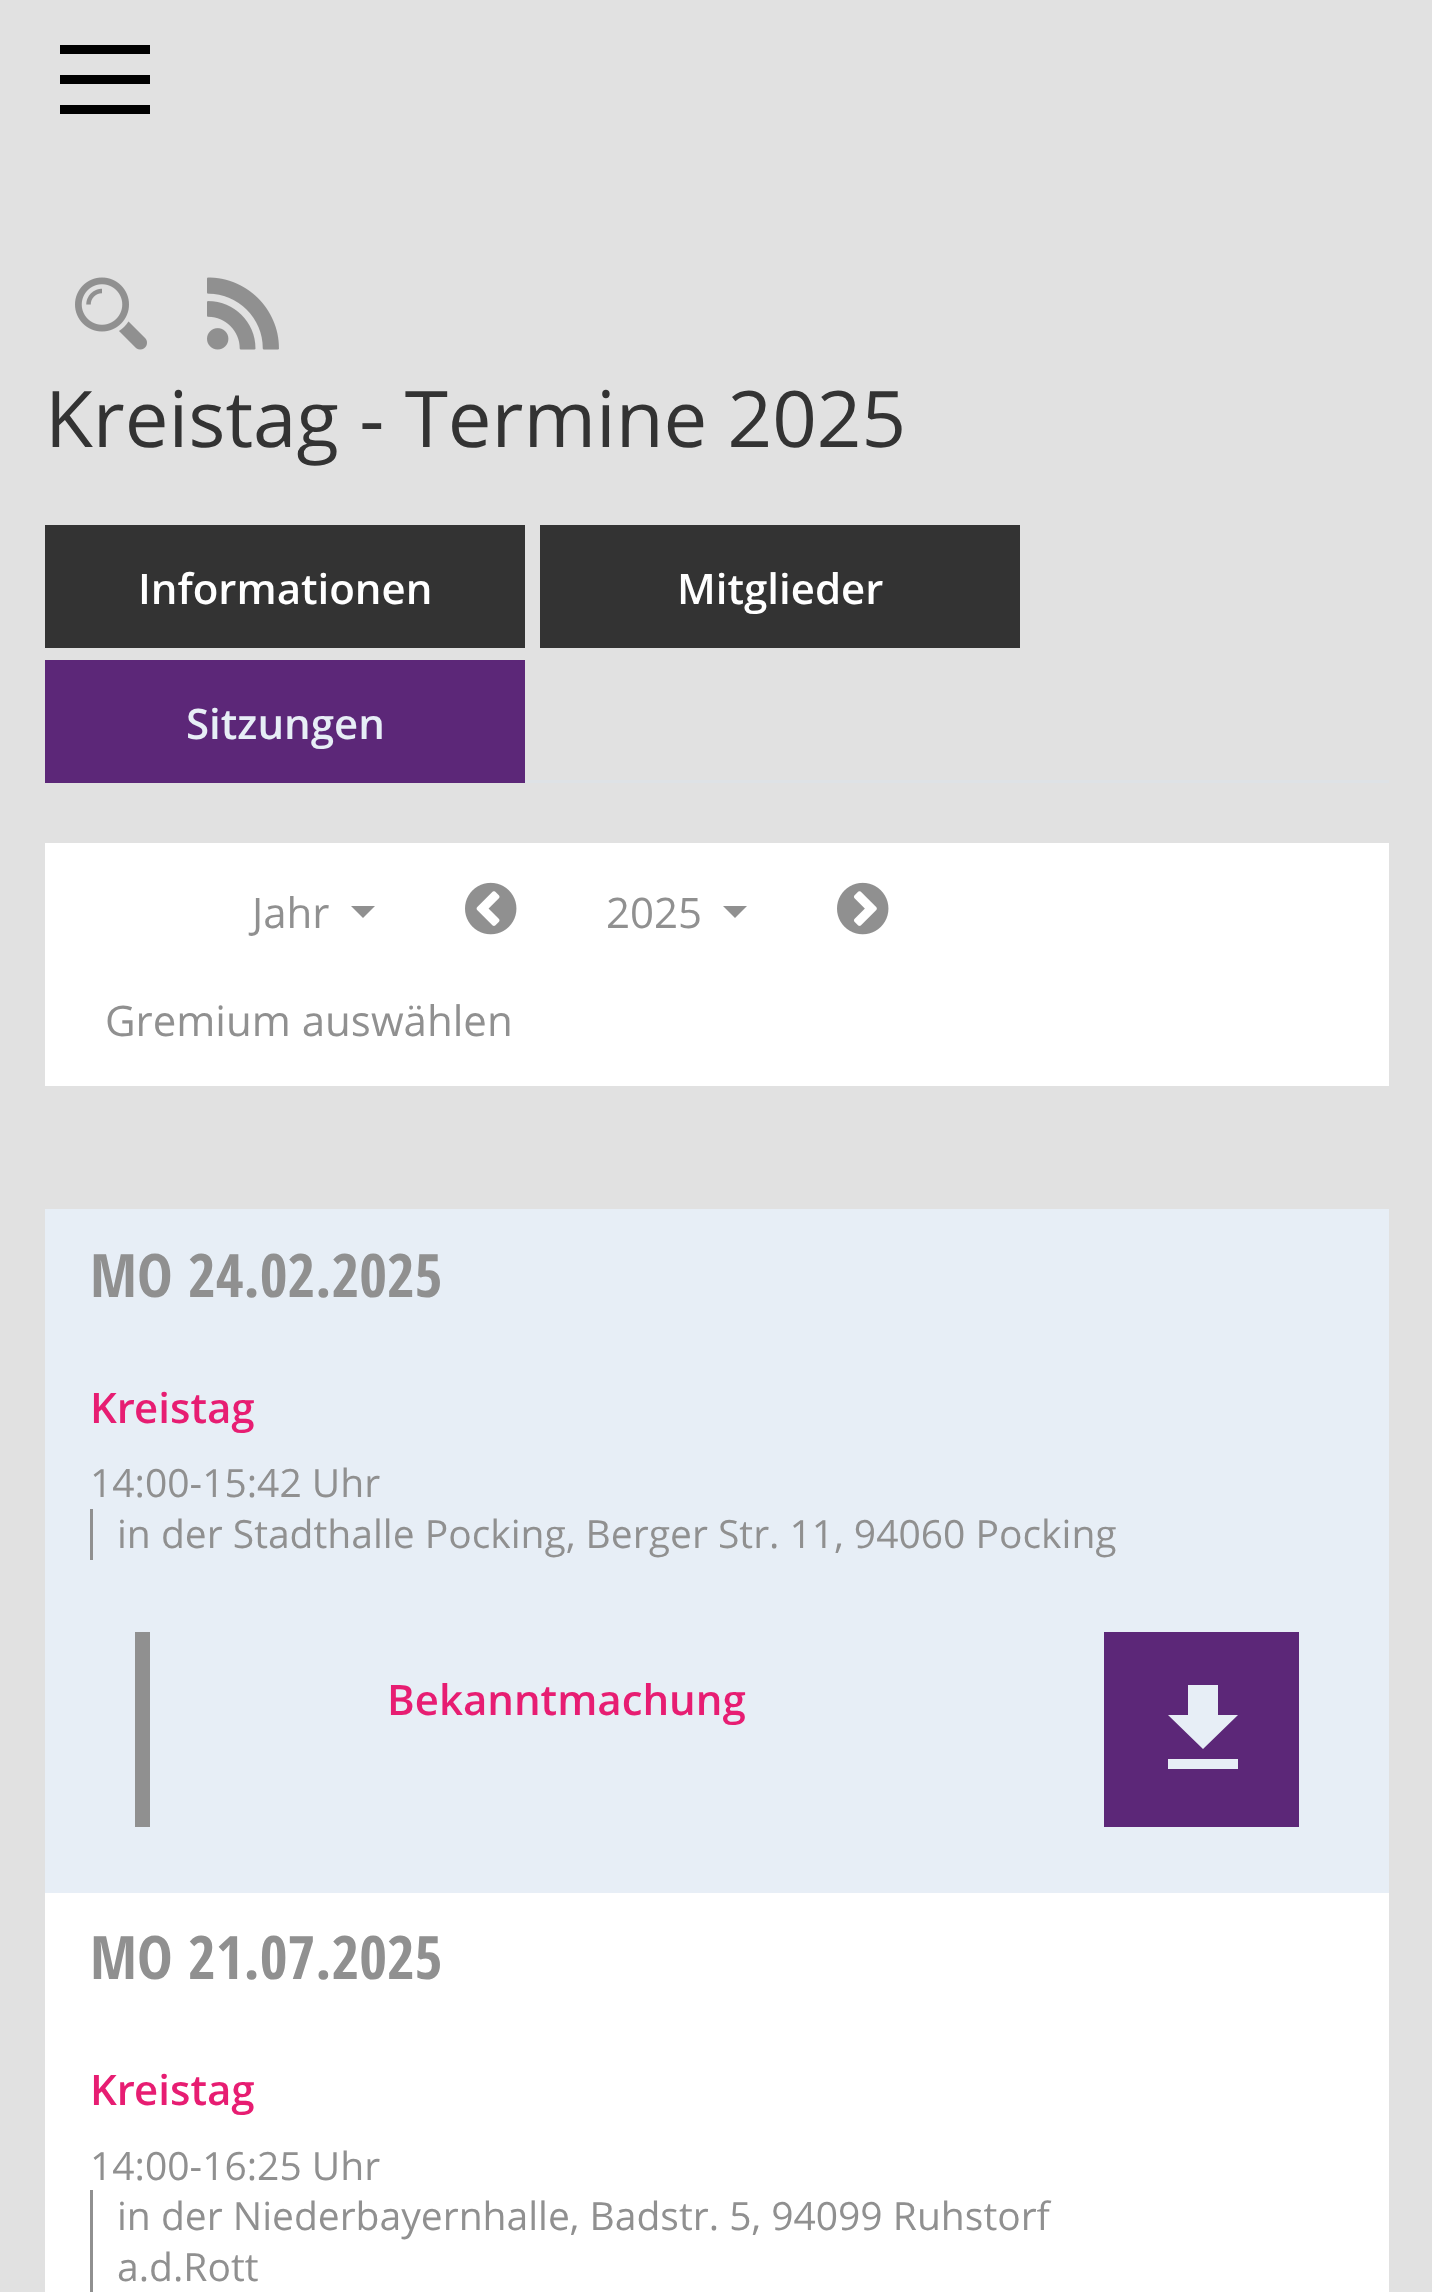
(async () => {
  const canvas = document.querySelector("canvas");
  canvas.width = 1432;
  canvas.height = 2292;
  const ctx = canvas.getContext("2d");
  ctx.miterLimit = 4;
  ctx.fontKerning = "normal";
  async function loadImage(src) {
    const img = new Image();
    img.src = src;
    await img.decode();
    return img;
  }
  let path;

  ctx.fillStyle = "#e1e1e1";
  ctx.fillRect(0, 0, 1432, 2292);
  for (const [x, y, w, h, color] of [
    [60, 45, 90, 9, "#000000"],
    [60, 75, 90, 9, "#000000"],
    [60, 105, 90, 9, "#000000"],
  ]) {
    ctx.fillStyle = color;
    ctx.fillRect(x, y, w, h);
  }
  ctx.drawImage(await loadImage("img/1.png"), 75, 277, 72, 73);
  ctx.drawImage(await loadImage("img/2.png"), 207, 277, 72, 73);
  for (const [x, y, w, h, color] of [
    [525, 780, 864, 3, "#dee2e6"],
    [45, 525, 480, 123, "#333333"],
    [540, 525, 480, 123, "#333333"],
    [45, 660, 480, 123, "#5c2778"],
    [45, 843, 1344, 243, "#ffffff"],
  ]) {
    ctx.fillStyle = color;
    ctx.fillRect(x, y, w, h);
  }
  ctx.fillStyle = "#909090";
  path = new Path2D("M351 906H375L363 918Z");
  ctx.fill(path);
  ctx.drawImage(await loadImage("img/3.png"), 465, 882, 52, 53);
  path = new Path2D("M723 906H747L735 918Z");
  ctx.fill(path);
  ctx.drawImage(await loadImage("img/4.png"), 837, 882, 52, 53);
  for (const [x, y, w, h, color] of [
    [45, 1893, 1344, 399, "#ffffff"],
    [45, 1209, 1344, 684, "#e7eef6"],
    [90, 1509, 3, 51, "#909090"],
    [135, 1632, 15, 195, "#909090"],
    [1104, 1632, 195, 195, "#5c2778"],
  ]) {
    ctx.fillStyle = color;
    ctx.fillRect(x, y, w, h);
  }
  ctx.fillStyle = "#e7eef6";
  path = new Path2D("M1238 1715H1218V1685H1188V1715H1168L1203 1749ZM1168 1759V1769H1238V1759Z");
  ctx.fill(path);
  ctx.fillStyle = "#909090";
  ctx.fillRect(90, 2190, 3, 102);
  ctx.font = "78px Open Sans";
  ctx.fillStyle = "#333333";
  ctx.fillText("Kreistag - Termine 2025", 45, 447);
  ctx.font = "600 42px Open Sans";
  ctx.fillStyle = "#ffffff";
  ctx.fillText("Informationen", 138, 604);
  ctx.fillText("Mitglieder", 677, 604);
  ctx.fillStyle = "#e7eef6";
  ctx.fillText("Sitzungen", 186, 739);
  ctx.font = "42px Open Sans";
  ctx.fillStyle = "#909090";
  for (const [text, x, y] of [
    ["Jahr", 252, 928],
    ["2025", 606, 928],
    ["Gremium auswählen", 105, 1036],
  ]) {
    ctx.fillText(text, x, y);
  }
  ctx.font = "bold 60px Open Sans Condensed";
  ctx.fillText("MO", 90, 1297);
  ctx.fillText("24.02.2025", 188, 1297);
  ctx.font = "600 42px Open Sans";
  ctx.fillStyle = "#e71d72";
  ctx.fillText("Kreistag", 90, 1423);
  ctx.font = "39px Open Sans";
  ctx.fillStyle = "#909090";
  ctx.fillText("14:00-15:42 Uhr", 90, 1497);
  ctx.fillText("in der Stadthalle Pocking, Berger Str. 11, 94060 Pocking", 117, 1548);
  ctx.font = "600 42px Open Sans";
  ctx.fillStyle = "#e71d72";
  ctx.fillText("Bekanntmachung", 387, 1715);
  ctx.font = "bold 60px Open Sans Condensed";
  ctx.fillStyle = "#909090";
  ctx.fillText("MO", 90, 1979);
  ctx.fillText("21.07.2025", 188, 1979);
  ctx.font = "600 42px Open Sans";
  ctx.fillStyle = "#e71d72";
  ctx.fillText("Kreistag", 90, 2105);
  ctx.font = "39px Open Sans";
  ctx.fillStyle = "#909090";
  for (const [text, x, y] of [
    ["14:00-16:25 Uhr", 90, 2180],
    ["in der Niederbayernhalle, Badstr. 5, 94099 Ruhstorf", 117, 2230],
    ["a.d.Rott", 117, 2281],
  ]) {
    ctx.fillText(text, x, y);
  }
})();
